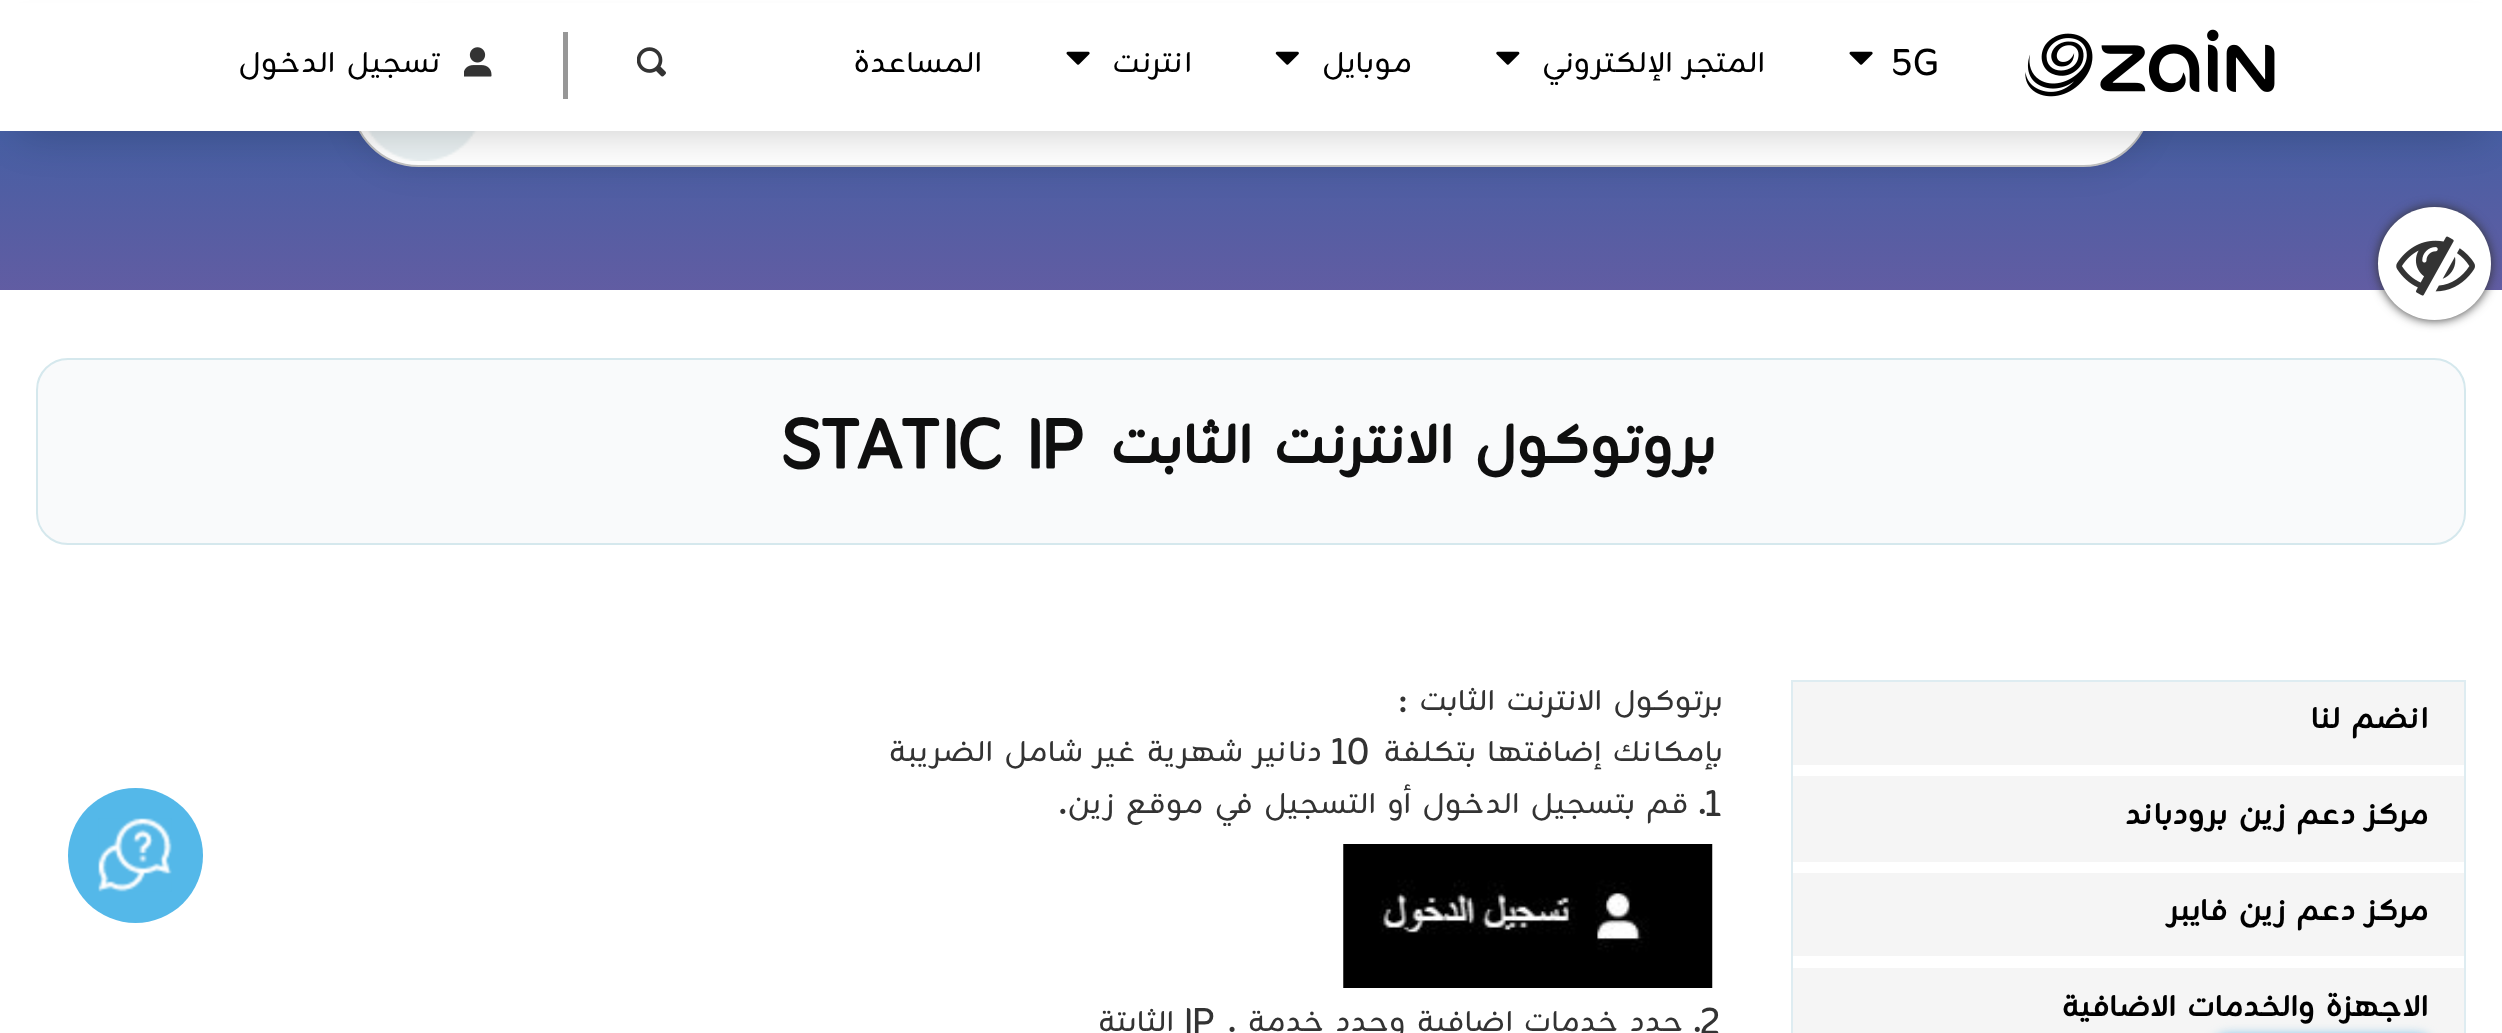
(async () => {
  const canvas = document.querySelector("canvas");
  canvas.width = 2502;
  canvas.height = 1033;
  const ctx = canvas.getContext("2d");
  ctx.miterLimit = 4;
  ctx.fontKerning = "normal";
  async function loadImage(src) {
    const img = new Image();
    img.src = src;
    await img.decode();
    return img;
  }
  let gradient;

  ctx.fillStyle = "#ffffff";
  ctx.fillRect(0, 0, 2502, 1033);
  gradient = ctx.createRadialGradient(57, -13077.29, 0, 57, -13077.29, 32273);
  gradient.addColorStop(0, "#2488de");
  gradient.addColorStop(0.28, "#1c63a5");
  gradient.addColorStop(1, "#9058a1");
  ctx.fillStyle = gradient;
  ctx.beginPath();
  ctx.rect(0, 131, 2502, 159);
  ctx.save();
  ctx.clip();
  ctx.scale(1, 960 / 32273);
  ctx.fillRect(0, 0, 2502, 34728);
  ctx.restore();
  ctx.fillStyle = "rgba(0, 0, 0, 0.1)";
  ctx.filter = "blur(16px)";
  ctx.beginPath();
  ctx.roundRect(351, 32, 1800, 135, 67.5);
  ctx.fill();
  ctx.filter = "none";
  ctx.fillStyle = "#ffffff";
  ctx.beginPath();
  ctx.roundRect(352, 33, 1798, 133, 66.5);
  ctx.fill();
  ctx.strokeStyle = "#c2c2c2";
  ctx.lineWidth = 2;
  ctx.stroke();
  ctx.drawImage(await loadImage("img/8.png"), 366, 131, 112, 30);
  ctx.fillStyle = "rgba(0, 0, 0, 0.2)";
  ctx.filter = "blur(21.5px)";
  ctx.beginPath();
  ctx.rect(20, 43, 2462, 90);
  ctx.fill();
  ctx.filter = "none";
  ctx.fillStyle = "#ffffff";
  ctx.fillRect(0, 3, 2502, 128);
  ctx.drawImage(await loadImage("img/1.png"), 2025, 29, 250, 68);
  ctx.drawImage(await loadImage("img/2.png"), 1849, 51, 24, 14);
  ctx.drawImage(await loadImage("img/3.png"), 1496, 51, 24, 14);
  ctx.drawImage(await loadImage("img/4.png"), 1275, 51, 24, 14);
  ctx.drawImage(await loadImage("img/2.png"), 1066, 51, 24, 14);
  ctx.drawImage(await loadImage("img/5.png"), 637, 47, 29, 30);
  ctx.fillStyle = "#979797";
  ctx.fillRect(563, 32, 5, 67);
  ctx.drawImage(await loadImage("img/6.png"), 464, 47, 28, 30);
  ctx.strokeStyle = "#deecf1";
  ctx.strokeRect(1792, 681, 673, 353);
  ctx.fillStyle = "#f5f5f5";
  ctx.fillRect(1793, 968, 671, 65);
  ctx.fillStyle = "#6db7e5";
  ctx.filter = "blur(5.5px)";
  ctx.beginPath();
  ctx.roundRect(2210, 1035, 225, 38, 23);
  ctx.fill();
  ctx.filter = "none";
  ctx.fillStyle = "#333333";
  ctx.filter = "blur(5.5px)";
  ctx.beginPath();
  ctx.roundRect(2378, 207, 113, 113, 56.5);
  ctx.fill();
  ctx.filter = "none";
  ctx.fillStyle = "#ffffff";
  ctx.beginPath();
  ctx.arc(2434.5, 263.5, 56.5, 0, Math.PI * 2);
  ctx.fill();
  ctx.drawImage(await loadImage("img/7.png"), 2396, 236, 79, 60);
  ctx.fillStyle = "#f9fafb";
  ctx.beginPath();
  ctx.roundRect(37, 359, 2428, 185, 31);
  ctx.fill();
  ctx.strokeStyle = "#d5e8ed";
  ctx.stroke();
  for (const [x, y, w, h, color] of [
    [1793, 682, 671, 83, "#f5f5f5"],
    [1793, 776, 671, 86, "#f5f5f5"],
    [1793, 873, 671, 83, "#f5f5f5"],
  ]) {
    ctx.fillStyle = color;
    ctx.fillRect(x, y, w, h);
  }
  ctx.drawImage(await loadImage("img/9.png"), 1343, 844, 370, 144);
  ctx.fillStyle = "#54b8e9";
  ctx.beginPath();
  ctx.arc(135.5, 855.5, 67.5, 0, Math.PI * 2);
  ctx.fill();
  ctx.drawImage(await loadImage("img/10.png"), 98, 818, 74, 74);
  ctx.font = "36px Zain";
  ctx.fillStyle = "#000000";
  ctx.fillText("5G", 1894, 72);
  ctx.direction = "rtl";
  for (const [text, x, y] of [
    ["المتجر الإلكتروني", 1765, 72],
    ["موبايل", 1412, 72],
    ["انترنت", 1192, 72],
    ["المساعدة", 982, 72],
    ["تسجيل الدخول", 440, 72],
  ]) {
    ctx.fillText(text, x, y);
  }
  ctx.font = "bold 67.5px Zain";
  ctx.fillStyle = "#0f0f0f";
  ctx.fillText("بروتوكول الانترنت الثابت", 1716, 463);
  ctx.direction = "ltr";
  ctx.fillText("STATIC IP", 786, 463);
  ctx.direction = "rtl";
  ctx.font = "bold 36px Zain";
  ctx.fillStyle = "#000000";
  for (const [text, x, y] of [
    ["انضم لنا", 2428, 728],
    ["مركز دعم زين برودباند", 2428, 824],
    ["مركز دعم زين فايبر", 2428, 920],
    ["الاجهزة والخدمات الاضافية", 2428, 1016],
  ]) {
    ctx.fillText(text, x, y);
  }
  ctx.font = "36px Zain";
  ctx.fillStyle = "#333333";
  ctx.fillText("برتوكول الانترنت الثابت :", 1723, 710);
  ctx.fillText("بإمكانك إضافتها بتكلفة", 1723, 761);
  ctx.direction = "ltr";
  ctx.fillText("10", 1333, 761);
  ctx.direction = "rtl";
  ctx.fillText("دنانير شهرية غير شامل الضريبة", 1322, 761);
  ctx.direction = "ltr";
  ctx.fillText("1", 1707, 813);
  ctx.direction = "rtl";
  ctx.fillText(". قم بتسجيل الدخول أو التسجيل في موقع زين.", 1707, 813);
  ctx.direction = "ltr";
  ctx.fillText("2", 1702, 1031);
  ctx.direction = "rtl";
  ctx.fillText(". حدد خدمات إضافية وحدد خدمة .", 1702, 1031);
  ctx.direction = "ltr";
  ctx.fillText("IP", 1185, 1031);
  ctx.direction = "rtl";
  ctx.fillText("الثابتة", 1174, 1031);
})();
